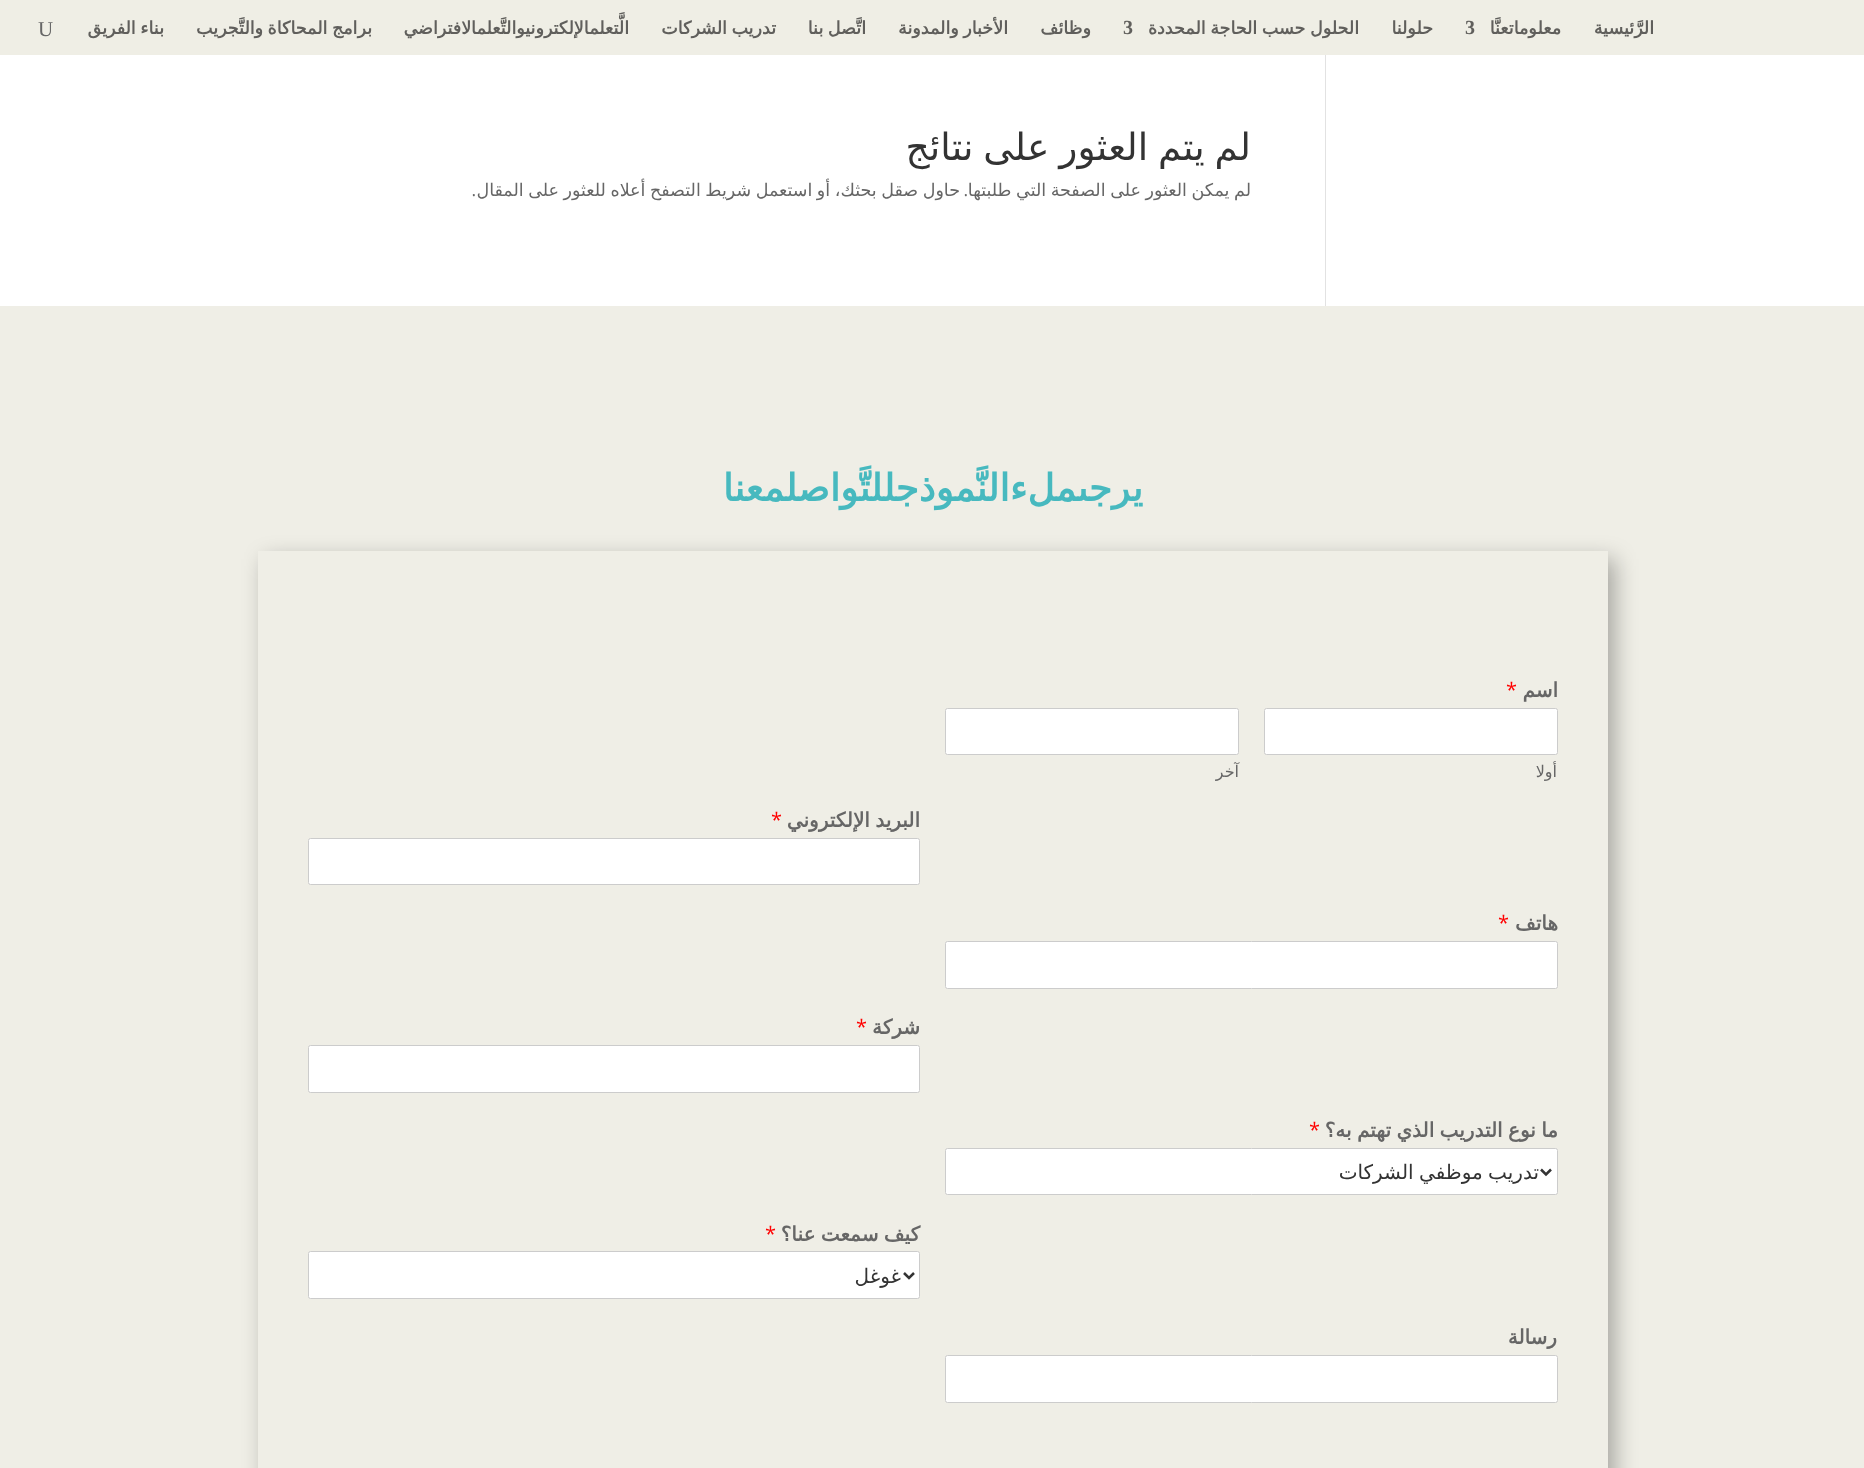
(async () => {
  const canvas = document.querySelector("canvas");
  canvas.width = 1864;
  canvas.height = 1468;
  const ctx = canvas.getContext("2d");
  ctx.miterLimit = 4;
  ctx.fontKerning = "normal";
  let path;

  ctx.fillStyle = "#ffffff";
  ctx.fillRect(0, 0, 1864, 1468);
  for (const [x, y, w, h, color] of [
    [0, 0, 1864, 55, "#efeee5"],
    [1325, 55, 1, 251, "#e2e2e2"],
    [0, 306, 1864, 1162, "#efeee6"],
  ]) {
    ctx.fillStyle = color;
    ctx.fillRect(x, y, w, h);
  }
  ctx.save();
  path = new Path2D("M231 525H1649V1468H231ZM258 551H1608V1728H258Z");
  ctx.clip(path, "evenodd");
  ctx.fillStyle = "rgba(0, 0, 0, 0.3)";
  ctx.filter = "blur(11px)";
  ctx.beginPath();
  ctx.rect(265, 559, 1350, 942);
  ctx.fill();
  ctx.filter = "none";
  ctx.restore();
  ctx.fillStyle = "#ffffff";
  ctx.beginPath();
  ctx.roundRect(1264.5, 708.5, 293, 46, 2);
  ctx.fill();
  ctx.strokeStyle = "#cccccc";
  ctx.stroke();
  ctx.beginPath();
  ctx.roundRect(945.5, 708.5, 293, 46, 2);
  ctx.fill();
  ctx.stroke();
  ctx.beginPath();
  ctx.roundRect(308.5, 838.5, 611, 46, 2);
  ctx.fill();
  ctx.stroke();
  ctx.beginPath();
  ctx.roundRect(945.5, 941.5, 612, 47, 2);
  ctx.fill();
  ctx.stroke();
  ctx.beginPath();
  ctx.roundRect(308.5, 1045.5, 611, 47, 2);
  ctx.fill();
  ctx.stroke();
  ctx.beginPath();
  ctx.roundRect(945.5, 1148.5, 612, 46, 2);
  ctx.fill();
  ctx.stroke();
  path = new Path2D("M1541 1169.5L1546 1174.5L1551 1169.5");
  ctx.strokeStyle = "#333333";
  ctx.lineWidth = 2.5;
  ctx.stroke(path);
  ctx.beginPath();
  ctx.roundRect(308.5, 1251.5, 611, 47, 2);
  ctx.fill();
  ctx.strokeStyle = "#cccccc";
  ctx.lineWidth = 1;
  ctx.stroke();
  path = new Path2D("M904 1273L909 1278L914 1273");
  ctx.strokeStyle = "#333333";
  ctx.lineWidth = 2.5;
  ctx.stroke(path);
  ctx.beginPath();
  ctx.roundRect(945.5, 1355.5, 612, 47, 2);
  ctx.fill();
  ctx.strokeStyle = "#cccccc";
  ctx.lineWidth = 1;
  ctx.stroke();
  ctx.direction = "rtl";
  ctx.font = "bold 17.5px DejaVu Sans";
  ctx.fillStyle = "#605f5c";
  ctx.fillText("الرَّئيسية", 1654, 34);
  ctx.fillText("معلوماتعنَّا", 1561, 34);
  ctx.direction = "ltr";
  ctx.font = "bold 20px Liberation Serif";
  ctx.fillText("3", 1465, 34);
  ctx.direction = "rtl";
  ctx.font = "bold 17.5px DejaVu Sans";
  ctx.fillText("حلولنا", 1433, 34);
  ctx.wordSpacing = "-1px";
  ctx.fillText("الحلول حسب الحاجة المحددة", 1359, 34);
  ctx.wordSpacing = "0px";
  ctx.direction = "ltr";
  ctx.font = "bold 20px Liberation Serif";
  ctx.fillText("3", 1123, 34);
  ctx.direction = "rtl";
  ctx.font = "bold 17.5px DejaVu Sans";
  ctx.fillText("وظائف", 1091, 34);
  ctx.wordSpacing = "-1px";
  for (const [text, x, y] of [
    ["الأخبار والمدونة", 1008, 34],
    ["اتَّصل بنا", 866, 34],
    ["تدريب الشركات", 776, 34],
  ]) {
    ctx.fillText(text, x, y);
  }
  ctx.wordSpacing = "0px";
  ctx.fillText("الَّتعلمالإلكترونيوالتَّعلمالافتراضي", 629, 34);
  ctx.wordSpacing = "-1px";
  ctx.fillText("برامج المحاكاة والتَّجريب", 372, 34);
  ctx.fillText("بناء الفريق", 164, 34);
  ctx.wordSpacing = "0px";
  ctx.direction = "ltr";
  ctx.font = "21px Liberation Serif";
  ctx.fillStyle = "#666666";
  ctx.fillText("U", 38, 36);
  ctx.wordSpacing = "-2px";
  ctx.direction = "rtl";
  ctx.font = "37.5px DejaVu Sans";
  ctx.fillStyle = "#333333";
  ctx.fillText("لم يتم العثور على نتائج", 1251, 160);
  ctx.wordSpacing = "-1px";
  ctx.font = "17.5px DejaVu Sans";
  ctx.fillStyle = "#666666";
  ctx.fillText("لم يمكن العثور على الصفحة التي طلبتها", 1251, 196);
  ctx.wordSpacing = "0px";
  ctx.font = "17.5px Open Sans";
  ctx.fillText(".", 968, 196);
  ctx.wordSpacing = "-1px";
  ctx.font = "17.5px DejaVu Sans";
  ctx.fillText("حاول صقل بحثك، أو استعمل شريط التصفح أعلاه للعثور على المقال", 960, 196);
  ctx.wordSpacing = "0px";
  ctx.font = "17.5px Open Sans";
  ctx.fillText(".", 476, 196);
  ctx.font = "bold 37.5px DejaVu Sans";
  ctx.fillStyle = "#47b9bf";
  ctx.fillText("يرجىملءالنَّموذجللتَّواصلمعنا", 1143, 501);
  ctx.font = "bold 20px DejaVu Sans";
  ctx.fillStyle = "#666666";
  ctx.fillText("اسم", 1558, 697);
  ctx.direction = "ltr";
  ctx.font = "20px Open Sans";
  ctx.fillStyle = "#ff0000";
  ctx.fillText("*", 1506, 697);
  ctx.direction = "rtl";
  ctx.font = "16px DejaVu Sans";
  ctx.fillStyle = "#666666";
  ctx.fillText("أولا", 1557, 777);
  ctx.fillText("آخر", 1239, 777);
  ctx.wordSpacing = "-1px";
  ctx.font = "bold 20px DejaVu Sans";
  ctx.fillText("البريد الإلكتروني", 920, 827);
  ctx.wordSpacing = "0px";
  ctx.direction = "ltr";
  ctx.font = "20px Open Sans";
  ctx.fillStyle = "#ff0000";
  ctx.fillText("*", 771, 827);
  ctx.direction = "rtl";
  ctx.font = "bold 20px DejaVu Sans";
  ctx.fillStyle = "#666666";
  ctx.fillText("هاتف", 1558, 930);
  ctx.direction = "ltr";
  ctx.font = "20px Open Sans";
  ctx.fillStyle = "#ff0000";
  ctx.fillText("*", 1498, 930);
  ctx.direction = "rtl";
  ctx.font = "bold 20px DejaVu Sans";
  ctx.fillStyle = "#666666";
  ctx.fillText("شركة", 920, 1034);
  ctx.direction = "ltr";
  ctx.font = "20px Open Sans";
  ctx.fillStyle = "#ff0000";
  ctx.fillText("*", 856, 1034);
  ctx.wordSpacing = "-1px";
  ctx.direction = "rtl";
  ctx.font = "bold 20px DejaVu Sans";
  ctx.fillStyle = "#666666";
  ctx.fillText("ما نوع التدريب الذي تهتم به؟", 1558, 1137);
  ctx.wordSpacing = "0px";
  ctx.direction = "ltr";
  ctx.font = "20px Open Sans";
  ctx.fillStyle = "#ff0000";
  ctx.fillText("*", 1309, 1137);
  ctx.wordSpacing = "-1px";
  ctx.direction = "rtl";
  ctx.font = "20px DejaVu Sans";
  ctx.fillStyle = "#333333";
  ctx.fillText("تدريب موظفي الشركات", 1539, 1179);
  ctx.font = "bold 20px DejaVu Sans";
  ctx.fillStyle = "#666666";
  ctx.fillText("كيف سمعت عنا؟", 920, 1241);
  ctx.wordSpacing = "0px";
  ctx.direction = "ltr";
  ctx.font = "20px Open Sans";
  ctx.fillStyle = "#ff0000";
  ctx.fillText("*", 765, 1241);
  ctx.direction = "rtl";
  ctx.font = "20px DejaVu Sans";
  ctx.fillStyle = "#333333";
  ctx.fillText("غوغل", 901, 1283);
  ctx.font = "bold 20px DejaVu Sans";
  ctx.fillStyle = "#666666";
  ctx.fillText("رسالة", 1557, 1344);
})();
